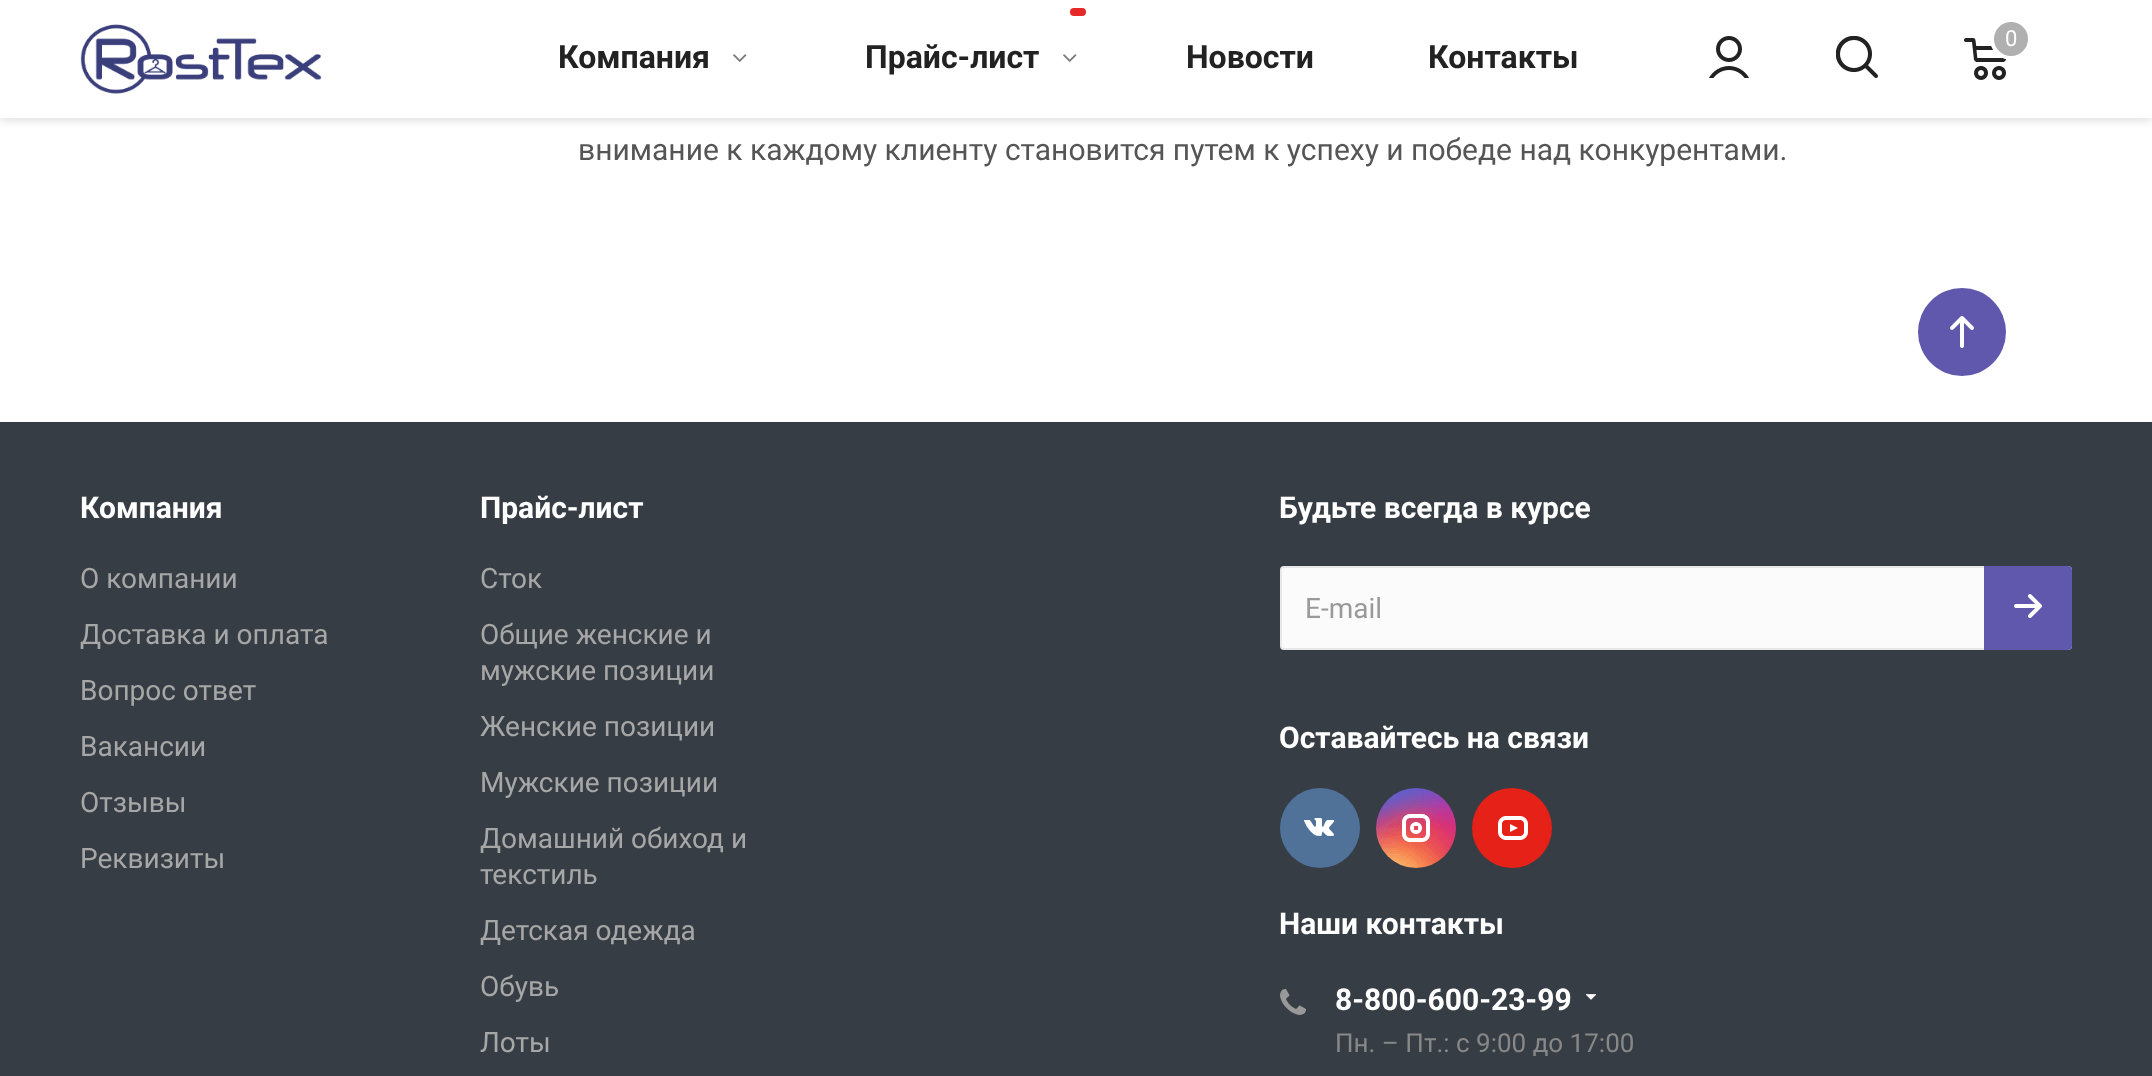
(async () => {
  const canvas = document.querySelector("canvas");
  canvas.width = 2152;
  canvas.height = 1076;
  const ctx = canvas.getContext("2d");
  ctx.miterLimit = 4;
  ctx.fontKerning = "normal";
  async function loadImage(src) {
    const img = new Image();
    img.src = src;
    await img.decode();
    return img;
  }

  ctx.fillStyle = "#ffffff";
  ctx.fillRect(0, 0, 2152, 1076);
  ctx.fillStyle = "rgba(0, 0, 0, 0.14)";
  ctx.filter = "blur(5px)";
  ctx.beginPath();
  ctx.rect(0, 2, 2152, 118);
  ctx.fill();
  ctx.filter = "none";
  ctx.fillStyle = "#ffffff";
  ctx.fillRect(0, 0, 2152, 118);
  ctx.drawImage(await loadImage("img/1.png"), 80, 24, 242, 70);
  ctx.drawImage(await loadImage("img/2.png"), 733, 54, 14, 8);
  ctx.fillStyle = "#e52929";
  ctx.beginPath();
  ctx.roundRect(1070, 8, 16, 8, 4);
  ctx.fill();
  ctx.drawImage(await loadImage("img/2.png"), 1063, 54, 14, 8);
  ctx.drawImage(await loadImage("img/3.png"), 1709, 36, 40, 42);
  ctx.drawImage(await loadImage("img/4.png"), 1836, 36, 42, 42);
  ctx.drawImage(await loadImage("img/5.png"), 1964, 38, 43, 42);
  ctx.fillStyle = "#b0b0b0";
  ctx.beginPath();
  ctx.arc(2011, 39, 19, 0, Math.PI * 2);
  ctx.fill();
  ctx.strokeStyle = "#ffffff";
  ctx.lineWidth = 4;
  ctx.stroke();
  ctx.fillStyle = "#5f58ac";
  ctx.beginPath();
  ctx.arc(1962, 332, 44, 0, Math.PI * 2);
  ctx.fill();
  ctx.drawImage(await loadImage("img/6.png"), 1950, 316, 24, 32);
  ctx.fillStyle = "#373d44";
  ctx.fillRect(0, 422, 2152, 654);
  ctx.fillStyle = "#fbfbfb";
  ctx.beginPath();
  ctx.roundRect(1281, 567, 790, 82, 3);
  ctx.fill();
  ctx.strokeStyle = "#e8e8e8";
  ctx.lineWidth = 2;
  ctx.stroke();
  ctx.fillStyle = "#5f58ac";
  ctx.beginPath();
  ctx.roundRect(1985, 567, 86, 82, [0, 3, 3, 0]);
  ctx.fill();
  ctx.strokeStyle = "#5f58ac";
  ctx.stroke();
  ctx.drawImage(await loadImage("img/7.png"), 2014, 594, 28, 24);
  ctx.drawImage(await loadImage("img/8.png"), 1280, 788, 80, 80);
  ctx.drawImage(await loadImage("img/9.png"), 1376, 788, 80, 80);
  ctx.drawImage(await loadImage("img/10.png"), 1472, 788, 80, 80);
  ctx.drawImage(await loadImage("img/11.png"), 1280, 989, 26, 26);
  ctx.drawImage(await loadImage("img/12.png"), 1586, 994, 10, 6);
  ctx.font = "bold 32px Roboto";
  ctx.fillStyle = "#222222";
  for (const [text, x, y] of [
    ["Компания", 558, 68],
    ["Прайс-лист", 865, 68],
    ["Новости", 1186, 68],
    ["Контакты", 1428, 68],
  ]) {
    ctx.fillText(text, x, y);
  }
  ctx.font = "22px Roboto";
  ctx.fillStyle = "#ffffff";
  ctx.fillText("0", 2005, 46);
  ctx.font = "30px Roboto";
  ctx.fillStyle = "#555555";
  ctx.fillText("внимание к каждому клиенту становится путем к успеху и победе над конкурентами.", 578, 160);
  ctx.font = "bold 30px Roboto";
  ctx.fillStyle = "#ffffff";
  ctx.fillText("Компания", 80, 518);
  ctx.font = "28px Roboto";
  ctx.fillStyle = "#a7a7a7";
  for (const [text, x, y] of [
    ["О компании", 80, 588],
    ["Доставка и оплата", 80, 644],
    ["Вопрос ответ", 80, 700],
    ["Вакансии", 80, 756],
    ["Отзывы", 80, 812],
    ["Реквизиты", 80, 868],
  ]) {
    ctx.fillText(text, x, y);
  }
  ctx.font = "bold 30px Roboto";
  ctx.fillStyle = "#ffffff";
  ctx.fillText("Прайс-лист", 480, 518);
  ctx.font = "28px Roboto";
  ctx.fillStyle = "#a7a7a7";
  for (const [text, x, y] of [
    ["Сток", 480, 588],
    ["Общие женские и", 480, 644],
    ["мужские позиции", 480, 680],
    ["Женские позиции", 480, 736],
    ["Мужские позиции", 480, 792],
    ["Домашний обиход и", 480, 848],
    ["текстиль", 480, 884],
    ["Детская одежда", 480, 940],
    ["Обувь", 480, 996],
    ["Лоты", 480, 1052],
  ]) {
    ctx.fillText(text, x, y);
  }
  ctx.font = "bold 30px Roboto";
  ctx.fillStyle = "#ffffff";
  ctx.fillText("Будьте всегда в курсе", 1279, 518);
  ctx.font = "28px Roboto";
  ctx.fillStyle = "#999999";
  ctx.fillText("E-mail", 1305, 618);
  ctx.font = "bold 30px Roboto";
  ctx.fillStyle = "#ffffff";
  for (const [text, x, y] of [
    ["Оставайтесь на связи", 1279, 748],
    ["Наши контакты", 1279, 934],
    ["8-800-600-23-99", 1335, 1010],
  ]) {
    ctx.fillText(text, x, y);
  }
  ctx.font = "26px Roboto";
  ctx.fillStyle = "#888888";
  ctx.fillText("Пн. – Пт.: с 9:00 до 17:00", 1335, 1052);
})();
